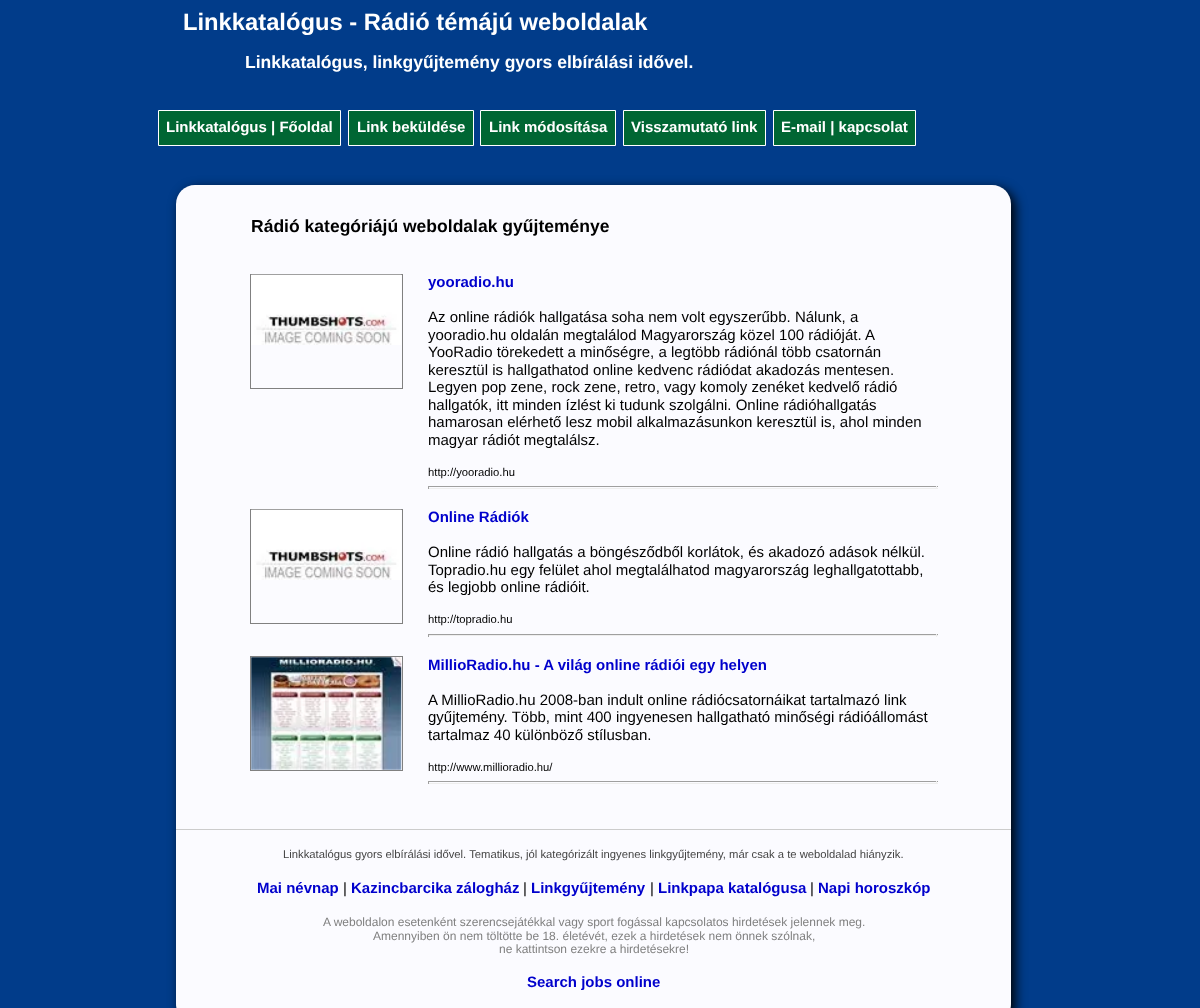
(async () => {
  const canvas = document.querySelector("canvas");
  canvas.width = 1200;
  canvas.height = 1008;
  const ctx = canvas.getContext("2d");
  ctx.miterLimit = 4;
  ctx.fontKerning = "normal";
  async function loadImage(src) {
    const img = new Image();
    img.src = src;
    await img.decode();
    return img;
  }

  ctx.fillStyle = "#013c8a";
  ctx.fillRect(0, 0, 1200, 1008);
  ctx.fillStyle = "#006633";
  ctx.beginPath();
  ctx.rect(158.5, 110.5, 182, 35);
  ctx.fill();
  ctx.strokeStyle = "#ffffff";
  ctx.stroke();
  ctx.beginPath();
  ctx.rect(348.5, 110.5, 125, 35);
  ctx.fill();
  ctx.stroke();
  ctx.beginPath();
  ctx.rect(480.5, 110.5, 135, 35);
  ctx.fill();
  ctx.stroke();
  ctx.beginPath();
  ctx.rect(623.5, 110.5, 142, 35);
  ctx.fill();
  ctx.stroke();
  ctx.beginPath();
  ctx.rect(773.5, 110.5, 142, 35);
  ctx.fill();
  ctx.stroke();
  ctx.fillStyle = "#000000";
  ctx.filter = "blur(6px)";
  ctx.beginPath();
  ctx.roundRect(180, 189, 835, 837, 19);
  ctx.fill();
  ctx.filter = "none";
  ctx.fillStyle = "#fbfbff";
  ctx.beginPath();
  ctx.roundRect(176, 185, 835, 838, 19);
  ctx.fill();
  ctx.strokeStyle = "#808080";
  ctx.strokeRect(250.5, 274.5, 152, 114);
  ctx.drawImage(await loadImage("img/1.png"), 251, 274, 151, 71);
  for (const [x, y, w, h, color] of [
    [428, 486, 510, 1, "#9f9f9f"],
    [936, 486, 1, 3, "#eeeeee"],
    [428, 488, 510, 1, "#eeeeee"],
    [428, 486, 1, 3, "#9f9f9f"],
  ]) {
    ctx.fillStyle = color;
    ctx.fillRect(x, y, w, h);
  }
  ctx.strokeRect(250.5, 509.5, 152, 114);
  ctx.drawImage(await loadImage("img/1.png"), 251, 509, 151, 71);
  for (const [x, y, w, h, color] of [
    [428, 634, 510, 1, "#9f9f9f"],
    [936, 634, 1, 3, "#eeeeee"],
    [428, 635, 510, 1, "#eeeeee"],
    [428, 634, 1, 3, "#9f9f9f"],
  ]) {
    ctx.fillStyle = color;
    ctx.fillRect(x, y, w, h);
  }
  ctx.strokeRect(250.5, 656.5, 152, 114);
  ctx.drawImage(await loadImage("img/2.png"), 251, 657, 151, 113);
  for (const [x, y, w, h, color] of [
    [428, 781, 510, 1, "#9f9f9f"],
    [936, 781, 1, 3, "#eeeeee"],
    [428, 783, 510, 1, "#eeeeee"],
    [428, 781, 1, 3, "#9f9f9f"],
    [176, 829, 835, 1, "#cccccc"],
  ]) {
    ctx.fillStyle = color;
    ctx.fillRect(x, y, w, h);
  }
  ctx.font = "bold 23.75px Liberation Sans";
  ctx.fillStyle = "#ffffff";
  ctx.fillText("Linkkatalógus - Rádió témájú weboldalak", 183, 30);
  ctx.font = "bold 17.5px Liberation Sans";
  ctx.fillText("Linkkatalógus, linkgyűjtemény gyors elbírálási idővel.", 245, 68);
  ctx.font = "bold 15px Liberation Sans";
  for (const [text, x, y] of [
    ["Linkkatalógus | Főoldal", 166, 132],
    ["Link beküldése", 357, 132],
    ["Link módosítása", 489, 132],
    ["Visszamutató link", 631, 132],
    ["E-mail | kapcsolat", 781, 132],
  ]) {
    ctx.fillText(text, x, y);
  }
  ctx.font = "bold 17.55px Liberation Sans";
  ctx.fillStyle = "#000000";
  ctx.fillText("Rádió kategóriájú weboldalak gyűjteménye", 251, 232);
  ctx.font = "bold 15px Liberation Sans";
  ctx.fillStyle = "#0000cc";
  ctx.fillText("yooradio.hu", 428, 287);
  ctx.font = "15px Liberation Sans";
  ctx.fillStyle = "#000000";
  for (const [text, x, y] of [
    ["Az online rádiók hallgatása soha nem volt egyszerűbb. Nálunk, a", 428, 322],
    ["yooradio.hu oldalán megtalálod Magyarország közel 100 rádióját. A", 428, 340],
    ["YooRadio törekedett a minőségre, a legtöbb rádiónál több csatornán", 428, 357],
    ["keresztül is hallgathatod online kedvenc rádiódat akadozás mentesen.", 428, 375],
    ["Legyen pop zene, rock zene, retro, vagy komoly zenéket kedvelő rádió", 428, 392],
    ["hallgatók, itt minden ízlést ki tudunk szolgálni. Online rádióhallgatás", 428, 410],
    ["hamarosan elérhető lesz mobil alkalmazásunkon keresztül is, ahol minden", 428, 427],
    ["magyar rádiót megtalálsz.", 428, 445],
  ]) {
    ctx.fillText(text, x, y);
  }
  ctx.font = "11.25px Liberation Sans";
  ctx.fillText("http://yooradio.hu", 428, 476);
  ctx.font = "bold 15px Liberation Sans";
  ctx.fillStyle = "#0000cc";
  ctx.fillText("Online Rádiók", 428, 522);
  ctx.font = "15px Liberation Sans";
  ctx.fillStyle = "#000000";
  for (const [text, x, y] of [
    ["Online rádió hallgatás a böngésződből korlátok, és akadozó adások nélkül.", 428, 557],
    ["Topradio.hu egy felület ahol megtalálhatod magyarország leghallgatottabb,", 428, 575],
    ["és legjobb online rádióit.", 428, 592],
  ]) {
    ctx.fillText(text, x, y);
  }
  ctx.font = "11.25px Liberation Sans";
  ctx.fillText("http://topradio.hu", 428, 623);
  ctx.font = "bold 15px Liberation Sans";
  ctx.fillStyle = "#0000cc";
  ctx.fillText("MillioRadio.hu - A világ online rádiói egy helyen", 428, 670);
  ctx.font = "15px Liberation Sans";
  ctx.fillStyle = "#000000";
  for (const [text, x, y] of [
    ["A MillioRadio.hu 2008-ban indult online rádiócsatornáikat tartalmazó link", 428, 705],
    ["gyűjtemény. Több, mint 400 ingyenesen hallgatható minőségi rádióállomást", 428, 722],
    ["tartalmaz 40 különböző stílusban.", 428, 740],
  ]) {
    ctx.fillText(text, x, y);
  }
  ctx.font = "11.25px Liberation Sans";
  ctx.fillText("http://www.millioradio.hu/", 428, 771);
  ctx.fillStyle = "#444444";
  ctx.fillText("Linkkatalógus gyors elbírálási idővel. Tematikus, jól kategórizált ingyenes linkgyűjtemény, már csak a te weboldalad hiányzik.", 283, 858);
  ctx.font = "bold 15px Liberation Sans";
  ctx.fillStyle = "#0000cc";
  ctx.fillText("Mai névnap", 257, 893);
  ctx.font = "15px Liberation Sans";
  ctx.fillStyle = "#000000";
  ctx.fillText("|", 343, 893);
  ctx.font = "bold 15px Liberation Sans";
  ctx.fillStyle = "#0000cc";
  ctx.fillText("Kazincbarcika zálogház", 351, 893);
  ctx.font = "15px Liberation Sans";
  ctx.fillStyle = "#000000";
  ctx.fillText("|", 523, 893);
  ctx.font = "bold 15px Liberation Sans";
  ctx.fillStyle = "#0000cc";
  ctx.fillText("Linkgyűjtemény", 531, 893);
  ctx.font = "15px Liberation Sans";
  ctx.fillStyle = "#000000";
  ctx.fillText("|", 650, 893);
  ctx.font = "bold 15px Liberation Sans";
  ctx.fillStyle = "#0000cc";
  ctx.fillText("Linkpapa katalógusa", 658, 893);
  ctx.font = "15px Liberation Sans";
  ctx.fillStyle = "#000000";
  ctx.fillText("|", 810, 893);
  ctx.font = "bold 15px Liberation Sans";
  ctx.fillStyle = "#0000cc";
  ctx.fillText("Napi horoszkóp", 818, 893);
  ctx.font = "12px Liberation Sans";
  ctx.fillStyle = "#808080";
  for (const [text, x, y] of [
    ["A weboldalon esetenként szerencsejátékkal vagy sport fogással kapcsolatos hirdetések jelennek meg.", 323, 926],
    ["Amennyiben ön nem töltötte be 18. életévét, ezek a hirdetések nem önnek szólnak,", 373, 940],
    ["ne kattintson ezekre a hirdetésekre!", 499, 953],
  ]) {
    ctx.fillText(text, x, y);
  }
  ctx.font = "bold 15px Liberation Sans";
  ctx.fillStyle = "#0000cc";
  ctx.fillText("Search jobs online", 527, 987);
})();
